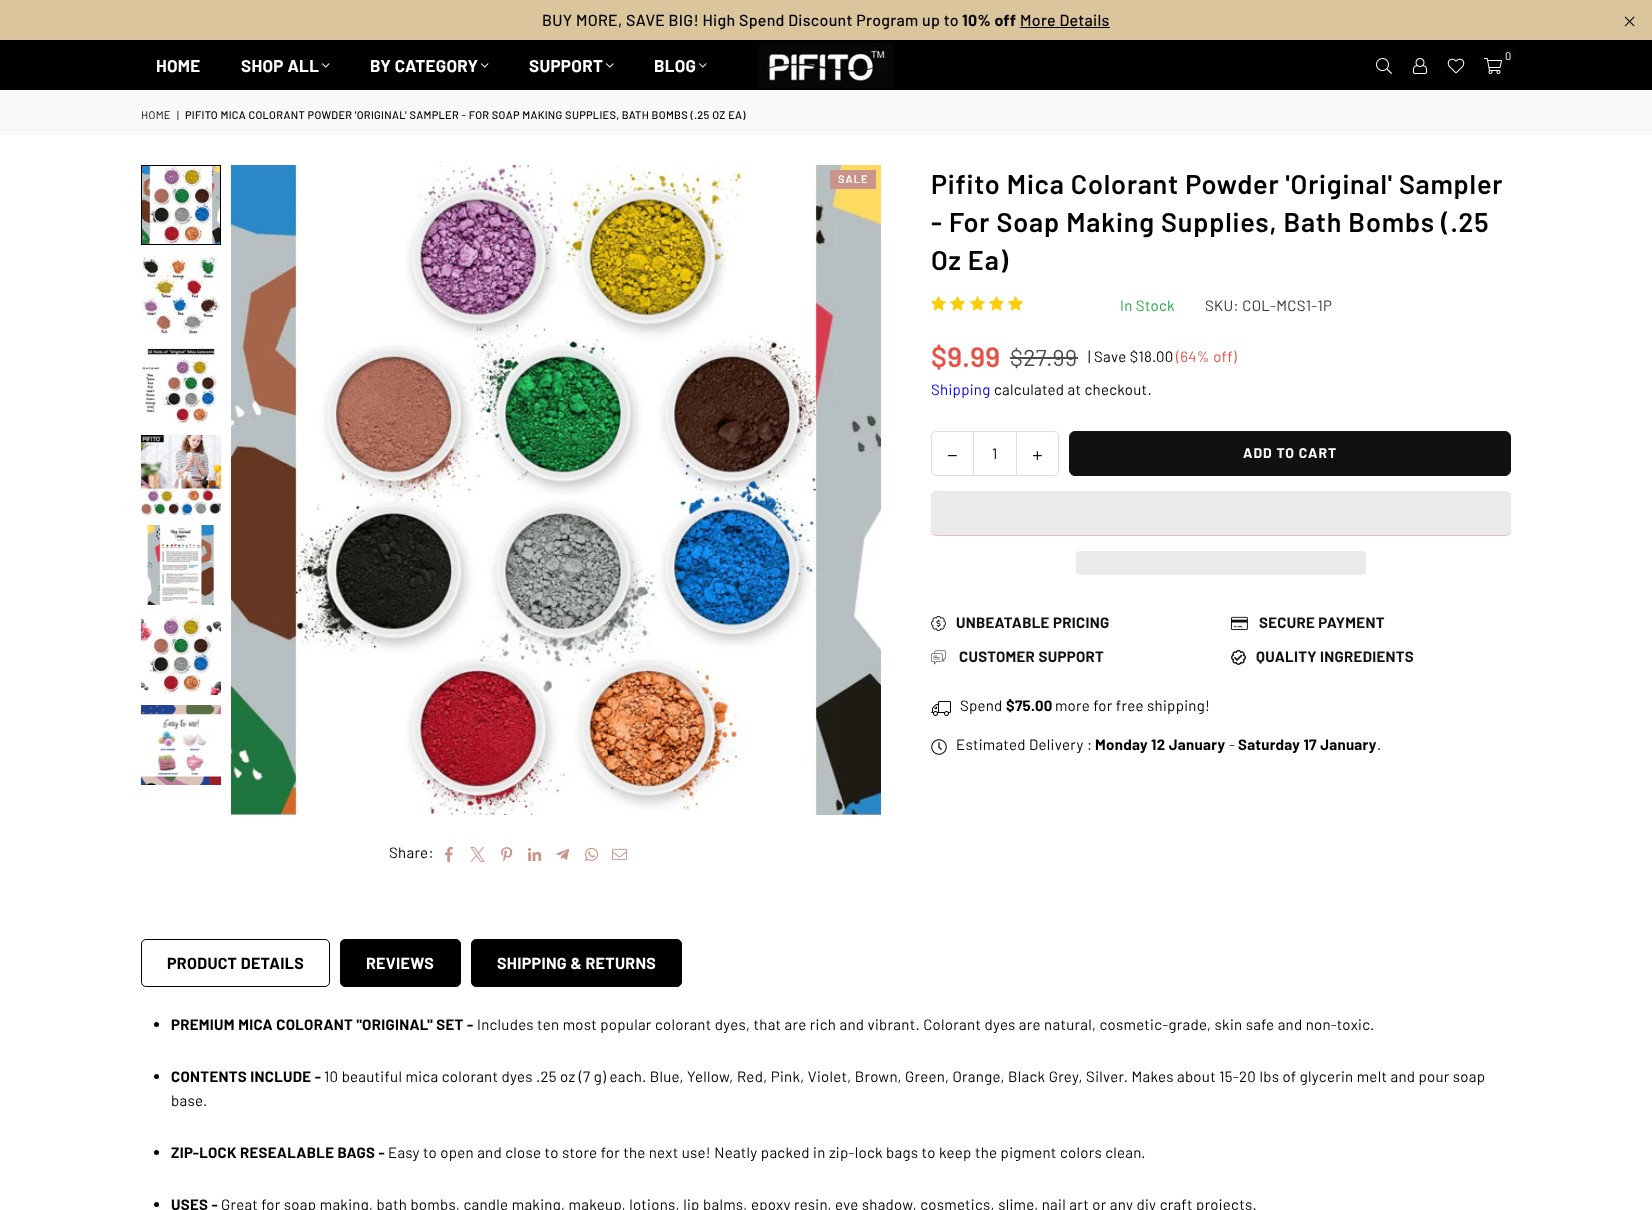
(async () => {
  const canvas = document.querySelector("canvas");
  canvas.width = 1652;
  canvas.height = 1210;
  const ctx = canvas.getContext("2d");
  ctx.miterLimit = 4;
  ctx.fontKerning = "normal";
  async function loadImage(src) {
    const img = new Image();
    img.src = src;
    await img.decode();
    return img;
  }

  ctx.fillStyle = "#ffffff";
  ctx.fillRect(0, 0, 1652, 1210);
  ctx.fillStyle = "#dbc59d";
  ctx.fillRect(0, 0, 1652, 40);
  ctx.fillStyle = "#000000";
  ctx.fillRect(1020, 27, 90, 1);
  ctx.drawImage(await loadImage("img/1.png"), 1624, 16, 11, 11);
  ctx.fillRect(0, 40, 1652, 50);
  ctx.drawImage(await loadImage("img/2.png"), 759, 43, 135, 45);
  ctx.drawImage(await loadImage("img/3.png"), 1484, 58, 18, 16);
  ctx.fillStyle = "#030505";
  ctx.beginPath();
  ctx.arc(1508, 55, 8, 0, Math.PI * 2);
  ctx.fill();
  ctx.drawImage(await loadImage("img/4.png"), 1376, 58, 16, 16);
  ctx.drawImage(await loadImage("img/5.png"), 1413, 58, 14, 16);
  ctx.drawImage(await loadImage("img/6.png"), 1447, 58, 18, 16);
  ctx.drawImage(await loadImage("img/7.png"), 322, 63, 8, 5);
  ctx.drawImage(await loadImage("img/7.png"), 481, 63, 8, 5);
  ctx.drawImage(await loadImage("img/7.png"), 606, 63, 8, 5);
  ctx.drawImage(await loadImage("img/7.png"), 699, 63, 8, 5);
  ctx.fillStyle = "#f9f9f9";
  ctx.fillRect(0, 91, 1652, 44);
  ctx.strokeStyle = "#000000";
  ctx.strokeRect(141.5, 165.5, 79, 79);
  ctx.drawImage(await loadImage("img/8.png"), 142, 166, 78, 78);
  ctx.drawImage(await loadImage("img/9.png"), 141, 255, 80, 80);
  ctx.drawImage(await loadImage("img/10.png"), 142, 348, 76, 76);
  ctx.drawImage(await loadImage("img/11.png"), 141, 435, 80, 80);
  ctx.drawImage(await loadImage("img/12.png"), 146, 525, 72, 80);
  ctx.drawImage(await loadImage("img/13.png"), 141, 615, 80, 80);
  ctx.drawImage(await loadImage("img/14.png"), 141, 705, 80, 80);
  ctx.drawImage(await loadImage("img/15.png"), 231, 165, 650, 650);
  ctx.fillStyle = "#c9948a";
  ctx.fillRect(830, 170, 46, 19);
  ctx.drawImage(await loadImage("img/16.png"), 445, 846, 8, 16);
  ctx.drawImage(await loadImage("img/17.png"), 470, 846, 15, 16);
  ctx.drawImage(await loadImage("img/18.png"), 501, 847, 12, 15);
  ctx.drawImage(await loadImage("img/19.png"), 528, 847, 14, 14);
  ctx.drawImage(await loadImage("img/20.png"), 556, 848, 14, 12);
  ctx.drawImage(await loadImage("img/21.png"), 585, 847, 14, 14);
  ctx.drawImage(await loadImage("img/22.png"), 612, 848, 15, 13);
  ctx.drawImage(await loadImage("img/23.png"), 931, 296, 15, 15);
  ctx.drawImage(await loadImage("img/23.png"), 950, 296, 15, 15);
  ctx.drawImage(await loadImage("img/23.png"), 970, 296, 15, 15);
  ctx.drawImage(await loadImage("img/23.png"), 989, 296, 15, 15);
  ctx.drawImage(await loadImage("img/23.png"), 1008, 296, 15, 15);
  ctx.fillStyle = "#4d4d4d";
  ctx.fillRect(1010, 357, 68, 2);
  ctx.beginPath();
  ctx.roundRect(931.5, 431.5, 127, 44, 4.5);
  ctx.strokeStyle = "#dddddd";
  ctx.stroke();
  ctx.fillStyle = "#dddddd";
  ctx.fillRect(973, 432, 1, 43);
  ctx.drawImage(await loadImage("img/24.png"), 948, 455, 9, 2);
  ctx.fillRect(1016, 432, 1, 43);
  ctx.drawImage(await loadImage("img/25.png"), 1033, 451, 9, 9);
  ctx.fillStyle = "#111111";
  ctx.beginPath();
  ctx.roundRect(1069.5, 431.5, 441, 44, 5.5);
  ctx.fill();
  ctx.strokeStyle = "#111111";
  ctx.stroke();
  ctx.fillStyle = "#dfbfb9";
  ctx.beginPath();
  ctx.roundRect(931, 491, 580, 45, 6);
  ctx.fill();
  ctx.fillStyle = "#ebebeb";
  ctx.beginPath();
  ctx.roundRect(931, 491, 580, 44, 6);
  ctx.fill();
  ctx.beginPath();
  ctx.roundRect(1076, 551, 290, 24, 4);
  ctx.fill();
  ctx.drawImage(await loadImage("img/26.png"), 931, 615, 15, 16);
  ctx.drawImage(await loadImage("img/27.png"), 1231, 616, 17, 14);
  ctx.drawImage(await loadImage("img/28.png"), 931, 650, 15, 15);
  ctx.drawImage(await loadImage("img/29.png"), 1231, 649, 15, 16);
  ctx.drawImage(await loadImage("img/30.png"), 931, 701, 20, 15);
  ctx.drawImage(await loadImage("img/31.png"), 931, 739, 16, 16);
  ctx.beginPath();
  ctx.roundRect(141.5, 939.5, 188, 47, 4.5);
  ctx.strokeStyle = "#000000";
  ctx.stroke();
  ctx.fillStyle = "#000000";
  ctx.beginPath();
  ctx.roundRect(340.5, 939.5, 120, 47, 4.5);
  ctx.fill();
  ctx.stroke();
  ctx.beginPath();
  ctx.roundRect(471.5, 939.5, 210, 47, 4.5);
  ctx.fill();
  ctx.stroke();
  ctx.beginPath();
  ctx.arc(156.5, 1024.5, 2.5, 0, Math.PI * 2);
  ctx.fill();
  ctx.beginPath();
  ctx.arc(156.5, 1076.5, 2.5, 0, Math.PI * 2);
  ctx.fill();
  ctx.beginPath();
  ctx.arc(156.5, 1152.5, 2.5, 0, Math.PI * 2);
  ctx.fill();
  ctx.beginPath();
  ctx.arc(156.5, 1204.5, 2.5, 0, Math.PI * 2);
  ctx.fill();
  ctx.letterSpacing = "0.3px";
  ctx.font = "500 16px Barlow";
  ctx.fillText("BUY MORE, SAVE BIG! High Spend Discount Program up to", 542, 26);
  ctx.font = "bold 16px Barlow";
  ctx.fillText("10% off", 962, 26);
  ctx.font = "500 16px Barlow";
  ctx.fillText("More Details", 1020, 26);
  ctx.font = "11px Barlow";
  ctx.fillStyle = "#ffffff";
  ctx.fillText("0", 1505, 60);
  ctx.font = "bold 17px Barlow";
  for (const [text, x, y] of [
    ["HOME", 156, 72],
    ["SHOP ALL", 241, 72],
    ["BY CATEGORY", 370, 72],
    ["SUPPORT", 529, 72],
    ["BLOG", 654, 72],
  ]) {
    ctx.fillText(text, x, y);
  }
  ctx.font = "11px Barlow";
  ctx.fillStyle = "#000000";
  ctx.fillText("HOME", 141, 119);
  ctx.fillText("|", 177, 119);
  ctx.font = "500 11px Barlow";
  ctx.fillText("PIFITO MICA COLORANT POWDER 'ORIGINAL' SAMPLER - FOR SOAP MAKING SUPPLIES, BATH BOMBS (.25 OZ EA)", 185, 119);
  ctx.letterSpacing = "1px";
  ctx.font = "600 11px Barlow";
  ctx.fillStyle = "#ffffff";
  ctx.fillText("SALE", 838, 183);
  ctx.letterSpacing = "0.3px";
  ctx.font = "15px Barlow";
  ctx.fillStyle = "#000000";
  ctx.fillText("Share:", 389, 858);
  ctx.letterSpacing = "0.8px";
  ctx.font = "600 27px Barlow";
  for (const [text, x, y] of [
    ["Pifito Mica Colorant Powder 'Original' Sampler", 931, 194],
    ["- For Soap Making Supplies, Bath Bombs (.25", 931, 232],
    ["Oz Ea)", 931, 270],
  ]) {
    ctx.fillText(text, x, y);
  }
  ctx.letterSpacing = "0.3px";
  ctx.font = "15px Barlow";
  ctx.fillStyle = "#28a745";
  ctx.fillText("In Stock", 1120, 311);
  ctx.fillStyle = "#333333";
  ctx.fillText("SKU: COL-MCS1-1P", 1205, 311);
  ctx.font = "600 28px Barlow";
  ctx.fillStyle = "#e95144";
  ctx.fillText("$9.99", 931, 367);
  ctx.font = "23px Barlow";
  ctx.fillStyle = "#4d4d4d";
  ctx.fillText("$27.99", 1010, 366);
  ctx.font = "15px Barlow";
  ctx.fillStyle = "#000000";
  ctx.fillText("| Save $18.00", 1088, 362);
  ctx.fillStyle = "#e95144";
  ctx.fillText("(64% off)", 1176, 362);
  ctx.fillStyle = "#0000ff";
  ctx.fillText("Shipping", 931, 395);
  ctx.fillStyle = "#000000";
  ctx.fillText("calculated at checkout.", 994, 395);
  ctx.letterSpacing = "0px";
  ctx.fillText("1", 992, 459);
  ctx.letterSpacing = "1px";
  ctx.font = "bold 14px Barlow";
  ctx.fillStyle = "#ffffff";
  ctx.fillText("ADD TO CART", 1243, 458);
  ctx.letterSpacing = "0.3px";
  ctx.font = "bold 15px Barlow";
  ctx.fillStyle = "#111111";
  for (const [text, x, y] of [
    ["UNBEATABLE PRICING", 956, 628],
    ["SECURE PAYMENT", 1259, 628],
    ["CUSTOMER SUPPORT", 959, 662],
    ["QUALITY INGREDIENTS", 1256, 662],
  ]) {
    ctx.fillText(text, x, y);
  }
  ctx.font = "15px Barlow";
  ctx.fillStyle = "#000000";
  ctx.fillText("Spend", 960, 711);
  ctx.font = "bold 15px Barlow";
  ctx.fillText("$75.00", 1006, 711);
  ctx.font = "15px Barlow";
  ctx.fillText("more for free shipping!", 1055, 711);
  ctx.fillText("Estimated Delivery :", 956, 750);
  ctx.font = "bold 15px Barlow";
  ctx.fillText("Monday 12 January", 1095, 750);
  ctx.font = "15px Barlow";
  ctx.fillText("-", 1229, 750);
  ctx.font = "bold 15px Barlow";
  ctx.fillText("Saturday 17 January", 1238, 750);
  ctx.font = "15px Barlow";
  ctx.fillText(".", 1377, 750);
  ctx.font = "bold 16px Barlow";
  ctx.fillText("PRODUCT DETAILS", 167, 969);
  ctx.fillStyle = "#ffffff";
  ctx.fillText("REVIEWS", 366, 969);
  ctx.fillText("SHIPPING & RETURNS", 497, 969);
  ctx.font = "bold 15px Barlow";
  ctx.fillStyle = "#000000";
  ctx.fillText("PREMIUM MICA COLORANT \"ORIGINAL\" SET -", 171, 1030);
  ctx.font = "15px Barlow";
  ctx.fillText("Includes ten most popular colorant dyes, that are rich and vibrant. Colorant dyes are natural, cosmetic-grade, skin safe and non-toxic.", 477, 1030);
  ctx.font = "bold 15px Barlow";
  ctx.fillText("CONTENTS INCLUDE -", 171, 1082);
  ctx.font = "15px Barlow";
  ctx.fillText("10 beautiful mica colorant dyes .25 oz (7 g) each. Blue, Yellow, Red, Pink, Violet, Brown, Green, Orange, Black Grey, Silver. Makes about 15-20 lbs of glycerin melt and pour soap", 324, 1082);
  ctx.fillText("base.", 171, 1106);
  ctx.font = "bold 15px Barlow";
  ctx.fillText("ZIP-LOCK RESEALABLE BAGS -", 171, 1158);
  ctx.font = "15px Barlow";
  ctx.fillText("Easy to open and close to store for the next use! Neatly packed in zip-lock bags to keep the pigment colors clean.", 388, 1158);
  ctx.font = "bold 15px Barlow";
  ctx.fillText("USES -", 171, 1210);
  ctx.font = "15px Barlow";
  ctx.fillText("Great for soap making, bath bombs, candle making, makeup, lotions, lip balms, epoxy resin, eye shadow, cosmetics, slime, nail art or any diy craft projects.", 221, 1210);
})();
